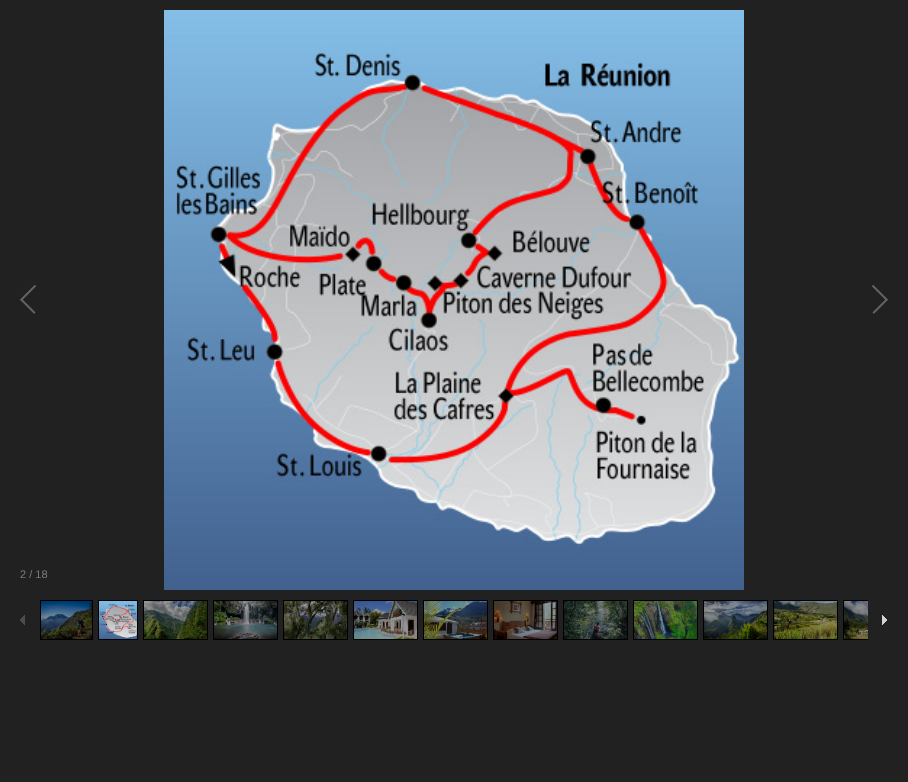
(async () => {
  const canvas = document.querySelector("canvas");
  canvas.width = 908;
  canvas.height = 782;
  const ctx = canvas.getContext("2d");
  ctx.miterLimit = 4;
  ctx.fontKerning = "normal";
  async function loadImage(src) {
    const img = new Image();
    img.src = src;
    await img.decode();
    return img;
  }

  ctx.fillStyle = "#212121";
  ctx.fillRect(0, 0, 908, 782);
  ctx.drawImage(await loadImage("img/1.png"), 164, 10, 580, 580);
  ctx.drawImage(await loadImage("img/2.png"), 20, 285, 16, 29);
  ctx.drawImage(await loadImage("img/3.png"), 872, 285, 16, 29);
  ctx.drawImage(await loadImage("img/4.png"), 20, 615, 5, 10);
  ctx.fillStyle = "#000000";
  ctx.fillRect(40, 600, 53, 40);
  ctx.drawImage(await loadImage("img/5.png"), 41, 601, 51, 38);
  ctx.fillRect(98, 600, 40, 40);
  ctx.drawImage(await loadImage("img/6.png"), 99, 601, 38, 38);
  ctx.fillRect(143, 600, 65, 40);
  ctx.drawImage(await loadImage("img/7.png"), 144, 601, 63, 38);
  ctx.fillRect(213, 600, 65, 40);
  ctx.drawImage(await loadImage("img/8.png"), 214, 601, 63, 38);
  ctx.fillRect(283, 600, 65, 40);
  ctx.drawImage(await loadImage("img/9.png"), 284, 601, 63, 38);
  ctx.fillRect(353, 600, 65, 40);
  ctx.drawImage(await loadImage("img/10.png"), 354, 601, 63, 38);
  ctx.fillRect(423, 600, 65, 40);
  ctx.drawImage(await loadImage("img/11.png"), 424, 601, 63, 38);
  ctx.fillRect(493, 600, 65, 40);
  ctx.drawImage(await loadImage("img/12.png"), 494, 601, 63, 38);
  ctx.fillRect(563, 600, 65, 40);
  ctx.drawImage(await loadImage("img/13.png"), 564, 601, 63, 38);
  ctx.fillRect(633, 600, 65, 40);
  ctx.drawImage(await loadImage("img/14.png"), 634, 601, 63, 38);
  ctx.fillRect(703, 600, 65, 40);
  ctx.drawImage(await loadImage("img/15.png"), 704, 601, 63, 38);
  ctx.fillRect(773, 600, 65, 40);
  ctx.drawImage(await loadImage("img/16.png"), 774, 601, 63, 38);
  ctx.fillRect(843, 600, 25, 40);
  ctx.drawImage(await loadImage("img/17.png"), 844, 601, 24, 38);
  ctx.drawImage(await loadImage("img/18.png"), 882, 615, 5, 10);
  ctx.font = "11px Liberation Sans";
  ctx.fillStyle = "#7a7a7a";
  ctx.fillText("2 / 18", 20, 578);
})();
